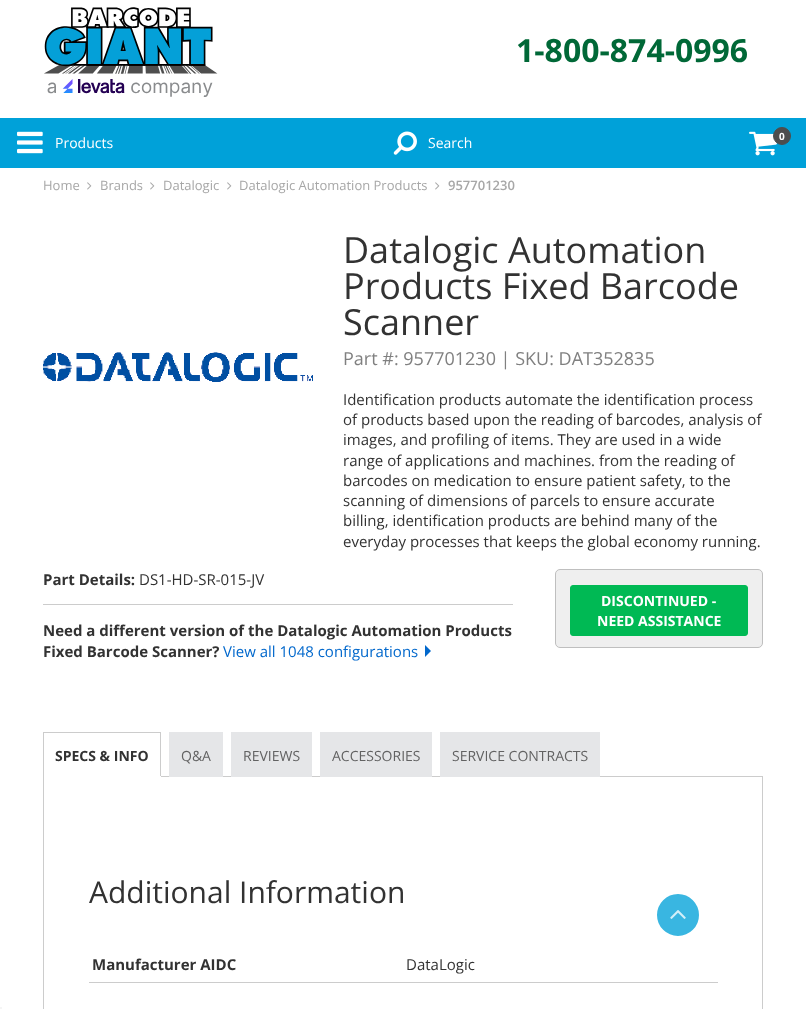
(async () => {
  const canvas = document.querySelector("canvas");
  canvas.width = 806;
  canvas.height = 1009;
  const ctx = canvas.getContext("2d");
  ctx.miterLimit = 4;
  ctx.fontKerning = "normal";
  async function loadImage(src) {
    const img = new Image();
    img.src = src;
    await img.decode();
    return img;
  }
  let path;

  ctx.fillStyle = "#ffffff";
  ctx.fillRect(0, 0, 806, 1009);
  ctx.drawImage(await loadImage("img/1.png"), 44, 7, 174, 90);
  ctx.fillStyle = "#00a1d9";
  ctx.fillRect(0, 118, 806, 50);
  ctx.drawImage(await loadImage("img/2.png"), 17, 131, 26, 23);
  ctx.drawImage(await loadImage("img/3.png"), 393, 131, 24, 24);
  ctx.drawImage(await loadImage("img/4.png"), 749, 131, 28, 25);
  ctx.fillStyle = "#4d4d4d";
  ctx.beginPath();
  ctx.arc(782, 136, 8.5, 0, Math.PI * 2);
  ctx.fill();
  ctx.strokeStyle = "#4d4d4d";
  ctx.stroke();
  ctx.drawImage(await loadImage("img/5.png"), 87, 182, 5, 8);
  ctx.drawImage(await loadImage("img/5.png"), 150, 182, 5, 8);
  ctx.drawImage(await loadImage("img/5.png"), 227, 182, 5, 8);
  ctx.drawImage(await loadImage("img/5.png"), 435, 182, 5, 8);
  ctx.drawImage(await loadImage("img/6.png"), 43, 352, 270, 30);
  ctx.fillStyle = "#cccccc";
  ctx.fillRect(43, 604, 470, 1);
  ctx.fillStyle = "#0268cc";
  path = new Path2D("M425 657V645L431 651Z");
  ctx.fill(path);
  ctx.fillStyle = "#efefef";
  ctx.beginPath();
  ctx.roundRect(555.5, 569.5, 207, 78, 4.5);
  ctx.fill();
  ctx.strokeStyle = "#bfbfbf";
  ctx.stroke();
  ctx.fillStyle = "#00b954";
  ctx.beginPath();
  ctx.roundRect(570.5, 585.5, 177, 50, 2.5);
  ctx.fill();
  ctx.strokeStyle = "#00b954";
  ctx.stroke();
  ctx.fillStyle = "#cccccc";
  ctx.fillRect(43, 732, 118, 1);
  ctx.strokeStyle = "#cccccc";
  ctx.strokeRect(43.5, 776.5, 719, 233);
  for (const [x, y, w, h, color] of [
    [160, 732, 1, 45, "#cccccc"],
    [43, 776, 118, 1, "#ffffff"],
    [43, 732, 1, 45, "#cccccc"],
    [169, 732, 54, 45, "#e5e6e8"],
    [231, 732, 81, 45, "#e5e6e8"],
    [320, 732, 112, 45, "#e5e6e8"],
    [440, 732, 160, 45, "#e5e6e8"],
    [89, 982, 629, 1, "#cccccc"],
  ]) {
    ctx.fillStyle = color;
    ctx.fillRect(x, y, w, h);
  }
  ctx.fillStyle = "#39b6e1";
  ctx.beginPath();
  ctx.arc(678, 915, 22.5, 0, Math.PI * 2);
  ctx.fill();
  ctx.strokeStyle = "#ffffff";
  ctx.lineWidth = 3;
  ctx.stroke();
  ctx.drawImage(await loadImage("img/7.png"), 670, 910, 16, 9);
  ctx.fillStyle = "#f5f5f5";
  ctx.fillRect(0, 1007, 2, 2);
  ctx.font = "bold 32px Open Sans";
  ctx.fillStyle = "#006837";
  ctx.fillText("1-800-874-0996", 516, 62);
  ctx.font = "14px Open Sans";
  ctx.fillStyle = "#ffffff";
  ctx.fillText("Products", 55, 148);
  ctx.fillText("Search", 428, 148);
  ctx.font = "bold 10px Open Sans";
  ctx.fillText("0", 779, 140);
  ctx.font = "13px Open Sans";
  ctx.fillStyle = "#a7a7a7";
  for (const [text, x, y] of [
    ["Home", 43, 190],
    ["Brands", 100, 190],
    ["Datalogic", 163, 190],
    ["Datalogic Automation Products", 239, 190],
  ]) {
    ctx.fillText(text, x, y);
  }
  ctx.font = "600 13px Open Sans";
  ctx.fillText("957701230", 448, 190);
  ctx.font = "36px Open Sans";
  ctx.fillStyle = "#323232";
  for (const [text, x, y] of [
    ["Datalogic Automation", 343, 263],
    ["Products Fixed Barcode", 343, 299],
    ["Scanner", 343, 335],
  ]) {
    ctx.fillText(text, x, y);
  }
  ctx.font = "18px Open Sans";
  ctx.fillStyle = "#808080";
  ctx.fillText("Part #: 957701230 | SKU: DAT352835", 343, 365);
  ctx.font = "15px Open Sans";
  ctx.fillStyle = "#323232";
  for (const [text, x, y] of [
    ["Identification products automate the identification process", 343, 405],
    ["of products based upon the reading of barcodes, analysis of", 343, 425],
    ["images, and profiling of items. They are used in a wide", 343, 445],
    ["range of applications and machines. from the reading of", 343, 466],
    ["barcodes on medication to ensure patient safety, to the", 343, 486],
    ["scanning of dimensions of parcels to ensure accurate", 343, 506],
    ["billing, identification products are behind many of the", 343, 526],
    ["everyday processes that keeps the global economy running.", 343, 547],
  ]) {
    ctx.fillText(text, x, y);
  }
  ctx.font = "bold 15px Open Sans";
  ctx.fillText("Part Details:", 43, 585);
  ctx.font = "15px Open Sans";
  ctx.fillText("DS1-HD-SR-015-JV", 139, 585);
  ctx.font = "bold 15px Open Sans";
  ctx.fillText("Need a different version of the Datalogic Automation Products", 43, 636);
  ctx.fillText("Fixed Barcode Scanner?", 43, 657);
  ctx.font = "15px Open Sans";
  ctx.fillStyle = "#0268cc";
  ctx.fillText("View all 1048 configurations", 223, 657);
  ctx.font = "bold 14px Open Sans";
  ctx.fillStyle = "#ffffff";
  ctx.fillText("DISCONTINUED -", 601, 606);
  ctx.fillText("NEED ASSISTANCE", 597, 626);
  ctx.fillStyle = "#323232";
  ctx.fillText("SPECS & INFO", 55, 761);
  ctx.font = "14px Open Sans";
  ctx.fillStyle = "#626262";
  for (const [text, x, y] of [
    ["Q&A", 181, 761],
    ["REVIEWS", 243, 761],
    ["ACCESSORIES", 332, 761],
    ["SERVICE CONTRACTS", 452, 761],
  ]) {
    ctx.fillText(text, x, y);
  }
  ctx.font = "30px Open Sans";
  ctx.fillStyle = "#323232";
  ctx.fillText("Additional Information", 89, 903);
  ctx.font = "bold 15px Open Sans";
  ctx.fillText("Manufacturer AIDC", 92, 970);
  ctx.font = "15px Open Sans";
  ctx.fillText("DataLogic", 406, 970);
})();
